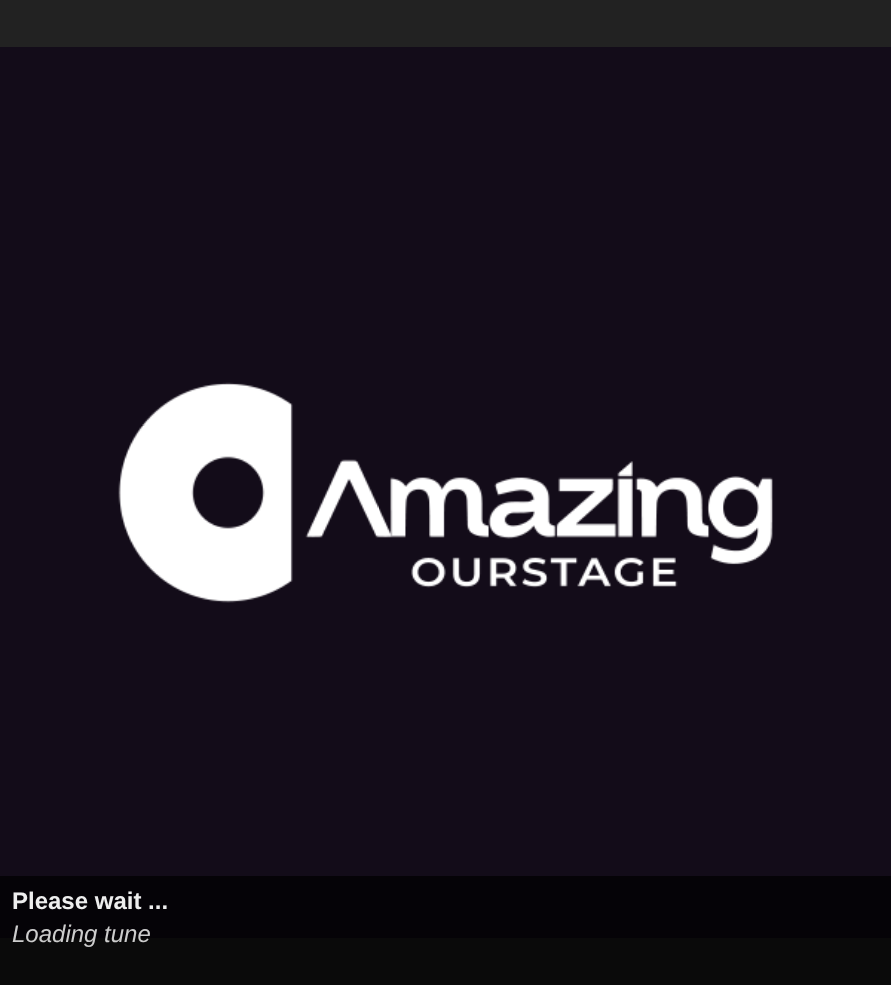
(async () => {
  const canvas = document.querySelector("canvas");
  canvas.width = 891;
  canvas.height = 985;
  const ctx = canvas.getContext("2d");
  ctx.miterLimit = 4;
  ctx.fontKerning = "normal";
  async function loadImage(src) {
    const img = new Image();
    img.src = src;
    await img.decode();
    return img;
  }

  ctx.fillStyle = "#222222";
  ctx.fillRect(0, 0, 891, 985);
  ctx.drawImage(await loadImage("img/1.png"), 0, 47, 891, 891);
  ctx.fillStyle = "rgba(0, 0, 0, 0.7)";
  ctx.fillRect(0, 876, 891, 109);
  ctx.font = "bold 24px Liberation Sans";
  ctx.fillStyle = "#eeeeee";
  ctx.fillText("Please wait ...", 12, 909);
  ctx.font = "italic 24px Liberation Sans";
  ctx.fillStyle = "#cccccc";
  ctx.fillText("Loading tune", 12, 942);
})();
